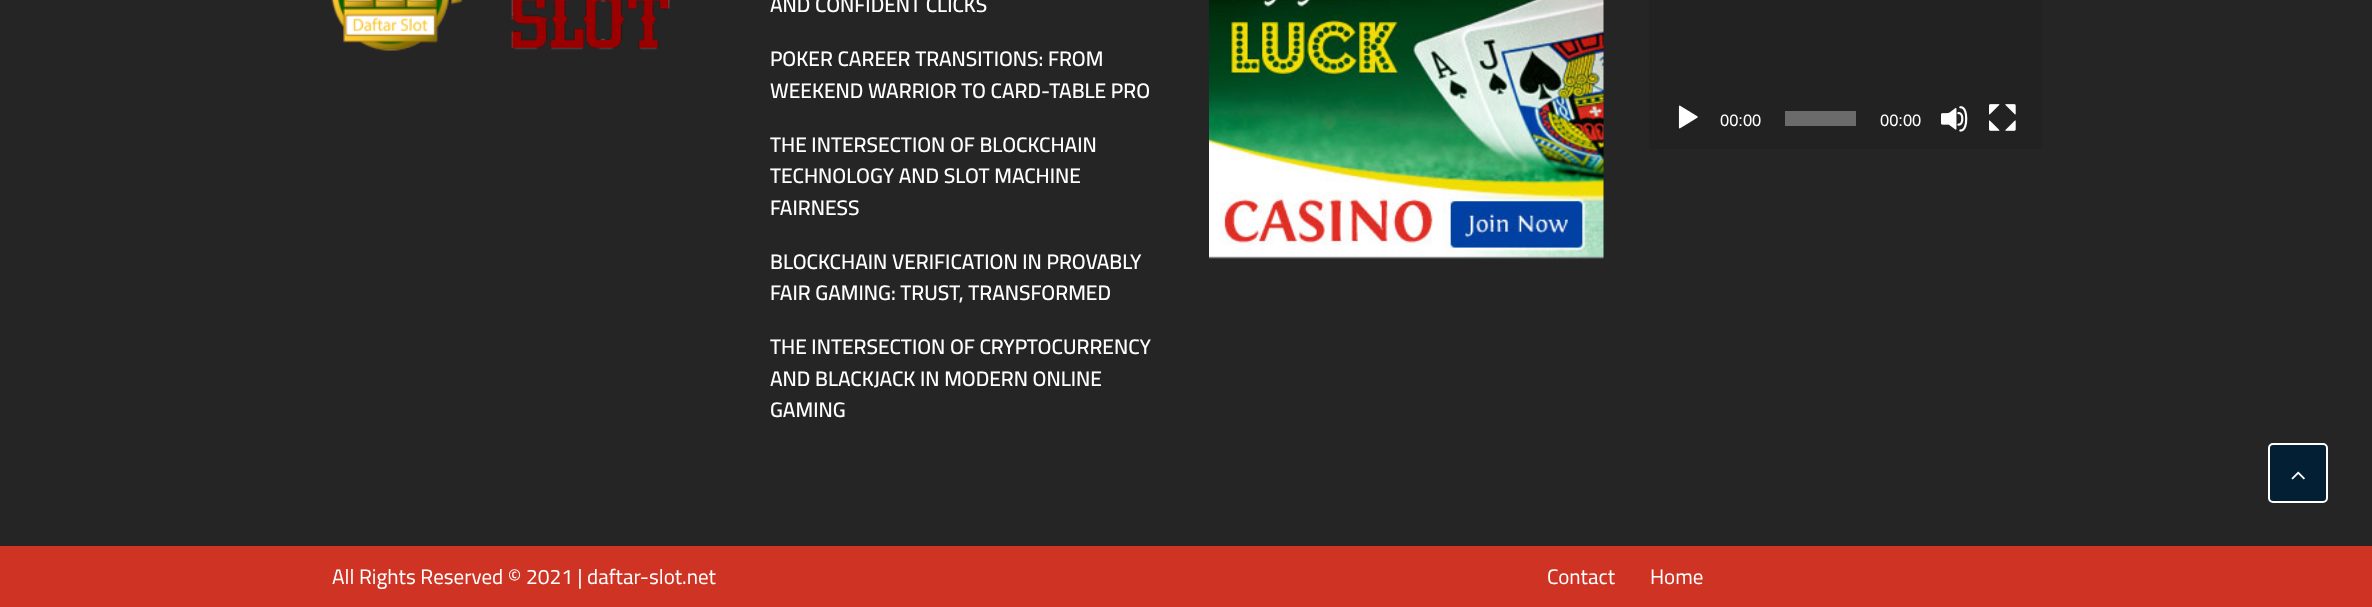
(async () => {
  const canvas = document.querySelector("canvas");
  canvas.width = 2372;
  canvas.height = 607;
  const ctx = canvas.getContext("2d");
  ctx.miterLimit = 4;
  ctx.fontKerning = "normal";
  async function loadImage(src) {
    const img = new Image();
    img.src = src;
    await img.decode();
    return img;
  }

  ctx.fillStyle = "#252525";
  ctx.fillRect(0, 0, 2372, 607);
  ctx.drawImage(await loadImage("img/1.png"), 331, 0, 339, 51);
  ctx.drawImage(await loadImage("img/2.png"), 1209, 0, 395, 259);
  ctx.fillStyle = "#222222";
  ctx.fillRect(1649, 0, 393, 149);
  ctx.drawImage(await loadImage("img/3.png"), 1678, 105, 20, 24);
  ctx.fillStyle = "#6b6b6b";
  ctx.fillRect(1785, 111, 71, 15);
  ctx.drawImage(await loadImage("img/4.png"), 1941, 106, 27, 26);
  ctx.drawImage(await loadImage("img/5.png"), 1989, 104, 27, 27);
  ctx.fillStyle = "#031f34";
  ctx.beginPath();
  ctx.roundRect(2269, 444, 58, 58, 4);
  ctx.fill();
  ctx.strokeStyle = "#ffffff";
  ctx.lineWidth = 2;
  ctx.stroke();
  ctx.drawImage(await loadImage("img/6.png"), 2291, 471, 14, 9);
  ctx.fillStyle = "#cf3323";
  ctx.fillRect(0, 546, 2372, 61);
  ctx.font = "600 21px Cairo";
  ctx.fillStyle = "#ffffff";
  for (const [text, x, y] of [
    ["AND CONFIDENT CLICKS", 770, 12],
    ["POKER CAREER TRANSITIONS: FROM", 770, 66],
    ["WEEKEND WARRIOR TO CARD-TABLE PRO", 770, 98],
    ["THE INTERSECTION OF BLOCKCHAIN", 770, 152],
    ["TECHNOLOGY AND SLOT MACHINE", 770, 183],
    ["FAIRNESS", 770, 215],
    ["BLOCKCHAIN VERIFICATION IN PROVABLY", 770, 269],
    ["FAIR GAMING: TRUST, TRANSFORMED", 770, 300],
    ["THE INTERSECTION OF CRYPTOCURRENCY", 770, 354],
    ["AND BLACKJACK IN MODERN ONLINE", 770, 386],
    ["GAMING", 770, 417],
  ]) {
    ctx.fillText(text, x, y);
  }
  ctx.font = "16.5px Liberation Sans";
  ctx.fillText("00:00", 1720, 126);
  ctx.fillText("00:00", 1880, 126);
  ctx.font = "21px Cairo";
  for (const [text, x, y] of [
    ["All Rights Reserved © 2021 | daftar-slot.net", 332, 584],
    ["Contact", 1547, 584],
    ["Home", 1650, 584],
  ]) {
    ctx.fillText(text, x, y);
  }
})();
